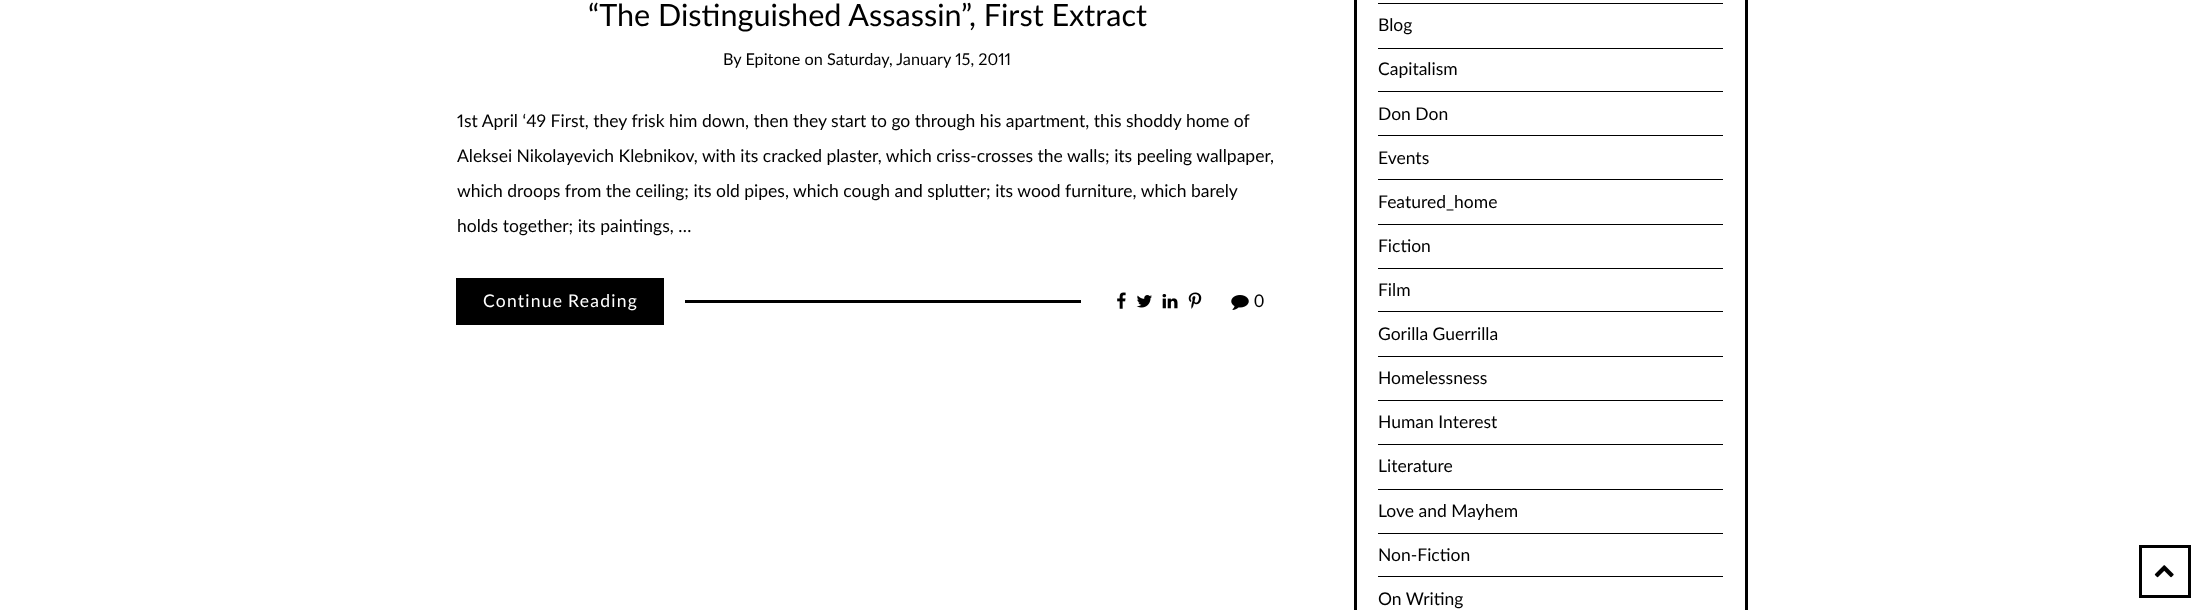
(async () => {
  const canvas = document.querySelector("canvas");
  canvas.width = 2203;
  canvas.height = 610;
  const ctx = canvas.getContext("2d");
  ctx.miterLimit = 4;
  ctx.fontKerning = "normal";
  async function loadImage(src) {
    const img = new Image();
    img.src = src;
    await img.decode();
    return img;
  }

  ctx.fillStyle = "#ffffff";
  ctx.fillRect(0, 0, 2203, 610);
  ctx.fillStyle = "#000000";
  ctx.fillRect(456, 278, 208, 47);
  ctx.fillRect(685, 300, 396, 3);
  ctx.drawImage(await loadImage("img/1.png"), 1117, 292, 9, 17);
  ctx.drawImage(await loadImage("img/2.png"), 1136, 295, 16, 13);
  ctx.drawImage(await loadImage("img/3.png"), 1162, 294, 16, 15);
  ctx.drawImage(await loadImage("img/4.png"), 1188, 292, 14, 17);
  ctx.drawImage(await loadImage("img/5.png"), 1231, 295, 18, 15);
  ctx.strokeStyle = "#000000";
  ctx.lineWidth = 3;
  ctx.strokeRect(1355.5, -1.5, 391, 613);
  for (const [x, y, w, h, color] of [
    [1378, 3, 345, 1, "#000000"],
    [1378, 48, 345, 1, "#000000"],
    [1378, 91, 345, 1, "#000000"],
    [1378, 135, 345, 1, "#000000"],
    [1378, 179, 345, 1, "#000000"],
    [1378, 224, 345, 1, "#000000"],
    [1378, 268, 345, 1, "#000000"],
    [1378, 311, 345, 1, "#000000"],
    [1378, 356, 345, 1, "#000000"],
    [1378, 400, 345, 1, "#000000"],
    [1378, 444, 345, 1, "#000000"],
    [1378, 489, 345, 1, "#000000"],
    [1378, 533, 345, 1, "#000000"],
    [1378, 576, 345, 1, "#000000"],
  ]) {
    ctx.fillStyle = color;
    ctx.fillRect(x, y, w, h);
  }
  ctx.strokeRect(2140.5, 546.5, 49, 50);
  ctx.drawImage(await loadImage("img/6.png"), 2154, 565, 20, 13);
  ctx.font = "30.6px Lato";
  ctx.fillText("“The Distinguished Assassin”, First Extract", 588, 26);
  ctx.font = "16.25px Lato";
  ctx.fillText("By Epitone on", 723, 65);
  ctx.font = "16.25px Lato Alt";
  ctx.fillText("Saturday, January 15, 2011", 827, 65);
  ctx.font = "17.5px Lato Alt";
  ctx.fillText("1st April ‘49 First, they frisk him down, then they start to go through his apartment, this shoddy home of", 457, 127);
  ctx.font = "17.5px Lato";
  for (const [text, x, y] of [
    ["Aleksei Nikolayevich Klebnikov, with its cracked plaster, which criss-crosses the walls; its peeling wallpaper,", 457, 162],
    ["which droops from the ceiling; its old pipes, which cough and splutter; its wood furniture, which barely", 457, 197],
    ["holds together; its paintings, …", 457, 232],
  ]) {
    ctx.fillText(text, x, y);
  }
  ctx.letterSpacing = "1.25px";
  ctx.wordSpacing = "-1px";
  ctx.fillStyle = "#ffffff";
  ctx.fillText("Continue Reading", 483, 307);
  ctx.letterSpacing = "0px";
  ctx.wordSpacing = "0px";
  ctx.fillStyle = "#000000";
  for (const [text, x, y] of [
    ["0", 1254, 307],
    ["Blog", 1378, 31],
    ["Capitalism", 1378, 75],
    ["Don Don", 1378, 120],
    ["Events", 1378, 164],
    ["Featured_home", 1378, 208],
    ["Fiction", 1378, 252],
    ["Film", 1378, 296],
    ["Gorilla Guerrilla", 1378, 340],
    ["Homelessness", 1378, 384],
    ["Human Interest", 1378, 428],
    ["Literature", 1378, 472],
    ["Love and Mayhem", 1378, 517],
    ["Non-Fiction", 1378, 561],
    ["On Writing", 1378, 605],
  ]) {
    ctx.fillText(text, x, y);
  }
})();
